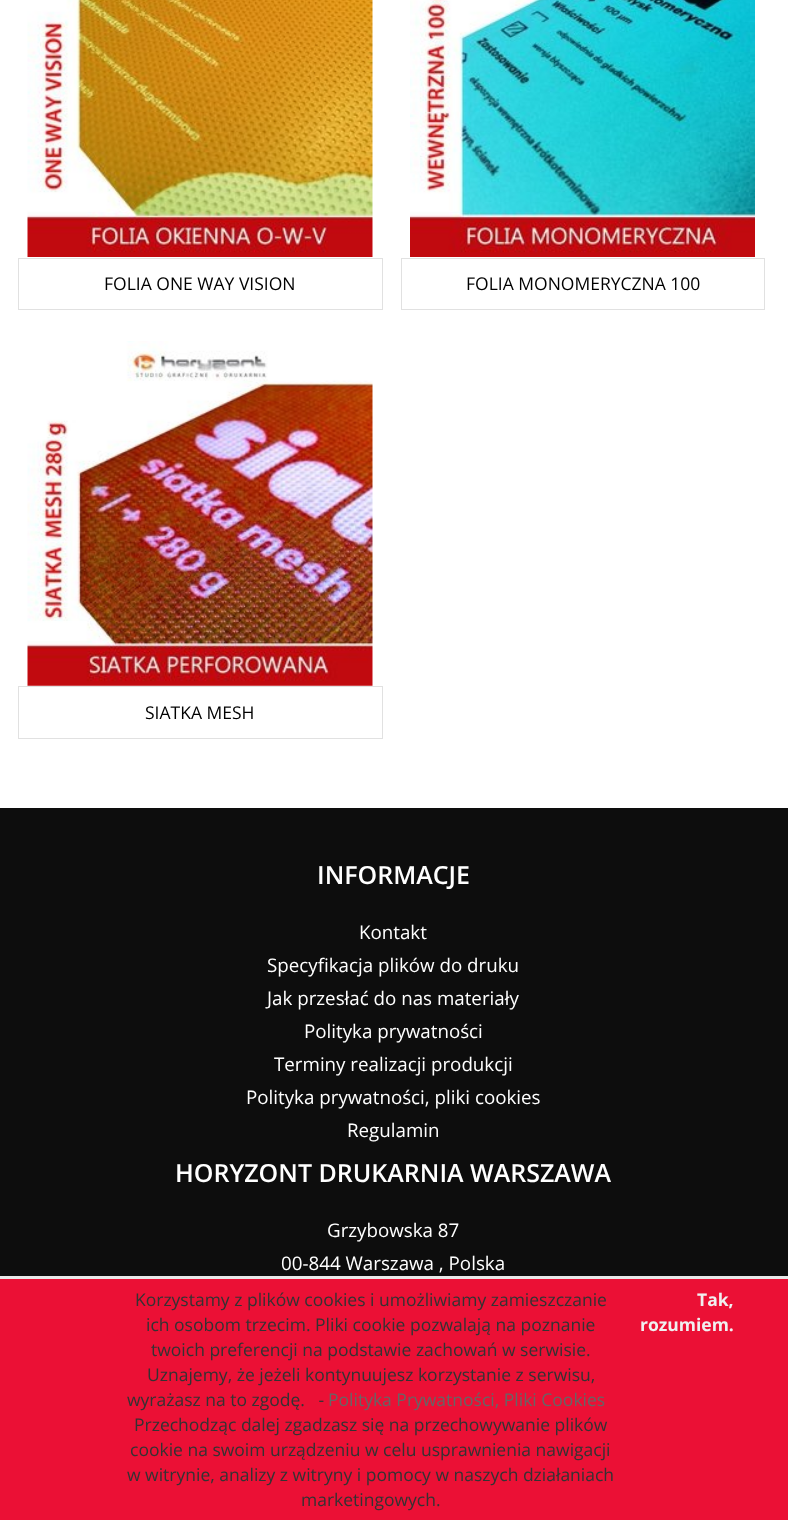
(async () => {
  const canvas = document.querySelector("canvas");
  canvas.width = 788;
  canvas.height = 1520;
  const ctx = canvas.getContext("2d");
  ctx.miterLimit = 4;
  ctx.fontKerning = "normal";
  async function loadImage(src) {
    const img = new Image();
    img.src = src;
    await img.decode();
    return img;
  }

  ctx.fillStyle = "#ffffff";
  ctx.fillRect(0, 0, 788, 1520);
  ctx.drawImage(await loadImage("img/1.png"), 27, 0, 346, 257);
  ctx.strokeStyle = "#e1e1e1";
  ctx.strokeRect(18.5, 258.5, 364, 51);
  ctx.drawImage(await loadImage("img/2.png"), 410, 0, 345, 257);
  ctx.strokeRect(401.5, 258.5, 363, 51);
  ctx.drawImage(await loadImage("img/3.png"), 27, 341, 346, 345);
  ctx.strokeRect(18.5, 686.5, 364, 52);
  for (const [x, y, w, h, color] of [
    [0, 808, 788, 468, "#0d0d0d"],
    [0, 1279, 788, 241, "#eb1035"],
    [0, 1276, 788, 3, "#e8e8e8"],
  ]) {
    ctx.fillStyle = color;
    ctx.fillRect(x, y, w, h);
  }
  ctx.font = "17.5px Open Sans";
  ctx.fillStyle = "#000000";
  for (const [text, x, y] of [
    ["FOLIA ONE WAY VISION", 104, 290],
    ["FOLIA MONOMERYCZNA 100", 466, 290],
    ["SIATKA MESH", 145, 719],
  ]) {
    ctx.fillText(text, x, y);
  }
  ctx.font = "600 25px Open Sans";
  ctx.fillStyle = "#ffffff";
  ctx.fillText("INFORMACJE", 317, 884);
  ctx.font = "18.75px Open Sans";
  for (const [text, x, y] of [
    ["Kontakt", 359, 939],
    ["Specyfikacja plików do druku", 267, 972],
    ["Jak przesłać do nas materiały", 267, 1005],
    ["Polityka prywatności", 304, 1038],
    ["Terminy realizacji produkcji", 274, 1071],
    ["Polityka prywatności, pliki cookies", 246, 1104],
    ["Regulamin", 347, 1137],
  ]) {
    ctx.fillText(text, x, y);
  }
  ctx.font = "600 25px Open Sans";
  ctx.fillText("HORYZONT DRUKARNIA WARSZAWA", 175, 1182);
  ctx.font = "18.75px Open Sans";
  ctx.fillText("Grzybowska 87", 327, 1237);
  ctx.fillText("00-844 Warszawa , Polska", 281, 1270);
  ctx.font = "17.5px Open Sans";
  ctx.fillStyle = "#333333";
  for (const [text, x, y] of [
    ["Korzystamy z plików cookies i umożliwiamy zamieszczanie", 135, 1306],
    ["ich osobom trzecim. Pliki cookie pozwalają na poznanie", 146, 1331],
    ["twoich preferencji na podstawie zachowań w serwisie.", 151, 1356],
    ["Uznajemy, że jeżeli kontynuujesz korzystanie z serwisu,", 147, 1381],
    ["wyrażasz na to zgodę.   -", 127, 1406],
  ]) {
    ctx.fillText(text, x, y);
  }
  ctx.fillStyle = "#666666";
  ctx.fillText("Polityka Prywatności, Pliki Cookies", 328, 1406);
  ctx.fillStyle = "#333333";
  for (const [text, x, y] of [
    ["Przechodząc dalej zgadzasz się na przechowywanie plików", 134, 1431],
    ["cookie na swoim urządzeniu w celu usprawnienia nawigacji", 130, 1456],
    ["w witrynie, analizy z witryny i pomocy w naszych działaniach", 127, 1481],
    ["marketingowych.", 301, 1506],
  ]) {
    ctx.fillText(text, x, y);
  }
  ctx.font = "bold 17.5px Open Sans";
  ctx.fillStyle = "#f0f0f0";
  ctx.fillText("Tak,", 697, 1306);
  ctx.fillText("rozumiem.", 640, 1331);
})();
